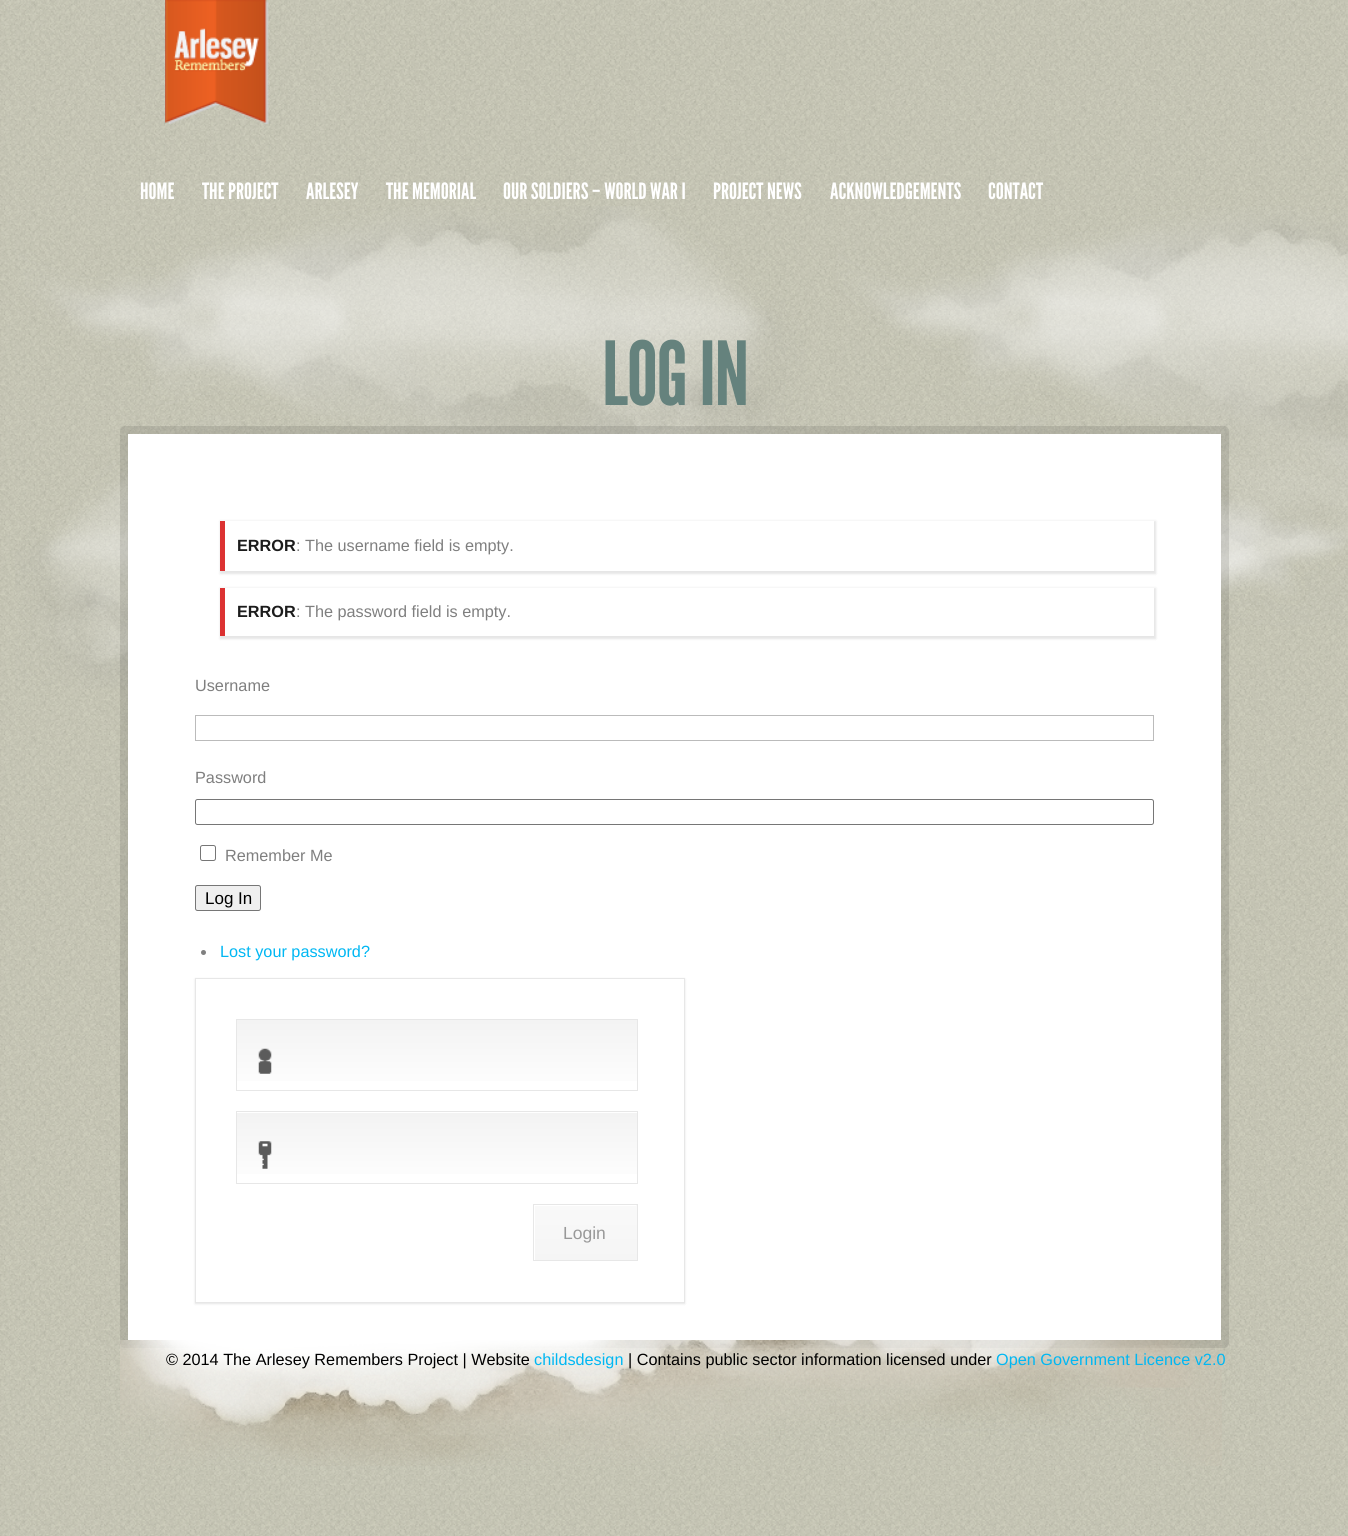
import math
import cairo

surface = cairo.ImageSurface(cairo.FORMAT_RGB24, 1348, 1536)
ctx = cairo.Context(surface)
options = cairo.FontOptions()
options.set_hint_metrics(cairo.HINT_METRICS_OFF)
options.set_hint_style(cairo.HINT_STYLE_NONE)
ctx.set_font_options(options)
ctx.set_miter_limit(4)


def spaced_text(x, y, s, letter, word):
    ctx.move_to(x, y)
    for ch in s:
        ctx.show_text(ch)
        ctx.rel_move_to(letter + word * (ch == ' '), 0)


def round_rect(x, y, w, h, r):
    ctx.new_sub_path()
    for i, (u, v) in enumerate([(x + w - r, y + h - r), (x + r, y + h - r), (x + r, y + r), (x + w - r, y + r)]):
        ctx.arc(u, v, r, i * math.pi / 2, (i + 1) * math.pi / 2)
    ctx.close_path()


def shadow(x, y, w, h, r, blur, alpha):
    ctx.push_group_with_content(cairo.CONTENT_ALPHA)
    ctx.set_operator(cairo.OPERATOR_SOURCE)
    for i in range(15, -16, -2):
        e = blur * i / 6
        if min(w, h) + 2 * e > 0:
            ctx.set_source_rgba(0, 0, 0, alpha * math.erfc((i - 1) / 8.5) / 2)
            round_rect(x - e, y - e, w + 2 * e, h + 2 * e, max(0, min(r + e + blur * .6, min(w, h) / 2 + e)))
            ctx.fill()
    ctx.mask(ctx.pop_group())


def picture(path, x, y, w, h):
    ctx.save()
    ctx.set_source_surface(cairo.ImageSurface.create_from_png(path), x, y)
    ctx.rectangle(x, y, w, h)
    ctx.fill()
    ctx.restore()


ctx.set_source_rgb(1, 1, 1)
ctx.paint()
picture("img1.png", 0, 0, 1348, 1536)
picture("img2.png", 165, 0, 104, 124)
ctx.select_font_face("League Gothic")
ctx.set_font_size(22.5)
ctx.set_source_rgb(1, 1, 1)
ctx.move_to(140, 199)
ctx.show_text("HOME")
ctx.move_to(202, 199)
ctx.show_text("THE PROJECT")
ctx.move_to(306, 199)
ctx.show_text("ARLESEY")
ctx.move_to(386, 199)
ctx.show_text("THE MEMORIAL")
ctx.move_to(503, 199)
ctx.show_text("OUR SOLDIERS – WORLD WAR I")
ctx.move_to(713, 199)
ctx.show_text("PROJECT NEWS")
ctx.move_to(830, 199)
ctx.show_text("ACKNOWLEDGEMENTS")
ctx.move_to(988, 199)
ctx.show_text("CONTACT")
picture("img6.png", 15, 206, 1333, 483)
ctx.set_font_size(88)
ctx.set_source_rgb(0.396, 0.51, 0.49)
spaced_text(602, 405, "LOG IN", -1.25, 0)
ctx.set_source_rgba(0, 0, 0, 0.1)
round_rect(120, 426, 1109, 922, 5)
ctx.fill()
ctx.set_source_rgb(1, 1, 1)
ctx.rectangle(128, 434, 1093, 906)
ctx.fill()
ctx.save()
ctx.set_fill_rule(cairo.FILL_RULE_EVEN_ODD)
ctx.new_path()
ctx.move_to(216, 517)
ctx.line_to(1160, 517)
ctx.line_to(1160, 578)
ctx.line_to(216, 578)
ctx.close_path()
ctx.move_to(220, 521)
ctx.line_to(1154, 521)
ctx.line_to(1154, 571)
ctx.line_to(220, 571)
ctx.close_path()
ctx.clip()
ctx.set_source_rgb(0, 0, 0)
shadow(220, 521, 936, 53, 0, 1, 0.1)
ctx.restore()
ctx.set_source_rgb(0.863, 0.196, 0.196)
ctx.rectangle(220, 521, 5, 50)
ctx.fill()
ctx.select_font_face("Liberation Sans", cairo.FONT_SLANT_NORMAL, cairo.FONT_WEIGHT_BOLD)
ctx.set_font_size(16.25)
ctx.set_source_rgb(0.11, 0.11, 0.11)
ctx.move_to(237, 551)
ctx.show_text("ERROR")
ctx.select_font_face("Liberation Sans")
ctx.set_source_rgb(0.498, 0.498, 0.498)
ctx.move_to(296, 551)
ctx.show_text(": The username field is empty.")
ctx.save()
ctx.set_fill_rule(cairo.FILL_RULE_EVEN_ODD)
ctx.new_path()
ctx.move_to(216, 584)
ctx.line_to(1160, 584)
ctx.line_to(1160, 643)
ctx.line_to(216, 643)
ctx.close_path()
ctx.move_to(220, 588)
ctx.line_to(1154, 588)
ctx.line_to(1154, 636)
ctx.line_to(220, 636)
ctx.close_path()
ctx.clip()
ctx.set_source_rgb(0, 0, 0)
shadow(220, 588, 936, 51, 0, 1, 0.1)
ctx.restore()
ctx.set_source_rgb(0.863, 0.196, 0.196)
ctx.rectangle(220, 588, 5, 48)
ctx.fill()
ctx.select_font_face("Liberation Sans", cairo.FONT_SLANT_NORMAL, cairo.FONT_WEIGHT_BOLD)
ctx.set_source_rgb(0.11, 0.11, 0.11)
ctx.move_to(237, 617)
ctx.show_text("ERROR")
ctx.select_font_face("Liberation Sans")
ctx.set_source_rgb(0.498, 0.498, 0.498)
ctx.move_to(296, 617)
ctx.show_text(": The password field is empty.")
ctx.move_to(195, 691)
ctx.show_text("Username")
ctx.rectangle(195.5, 715.5, 958, 25)
ctx.set_source_rgb(0.733, 0.733, 0.733)
ctx.set_line_width(1)
ctx.stroke()
ctx.set_source_rgb(0.498, 0.498, 0.498)
ctx.move_to(195, 783)
ctx.show_text("Password")
round_rect(195.5, 799.5, 958, 25, 2)
ctx.set_source_rgb(0.463, 0.463, 0.463)
ctx.stroke()
round_rect(200.5, 845.5, 15, 15, 2)
ctx.stroke()
ctx.set_source_rgb(0.498, 0.498, 0.498)
ctx.move_to(225, 861)
ctx.show_text("Remember Me")
ctx.set_source_rgb(0.937, 0.937, 0.937)
round_rect(195.5, 885.5, 65, 25, 2)
ctx.fill_preserve()
ctx.set_source_rgb(0.463, 0.463, 0.463)
ctx.stroke()
ctx.set_font_size(17)
ctx.set_source_rgb(0, 0, 0)
ctx.move_to(205, 904)
ctx.show_text("Log In")
ctx.set_source_rgb(0.498, 0.498, 0.498)
ctx.new_path()
ctx.arc(203.5, 952.5, 2.5, 0, 2 * math.pi)
ctx.fill()
ctx.set_font_size(16.25)
ctx.set_source_rgb(0, 0.718, 0.953)
ctx.move_to(220, 957)
ctx.show_text("Lost your password?")
ctx.set_source_rgb(0, 0, 0)
shadow(195, 979, 490, 325, 0, 1, 0.1)
ctx.set_source_rgb(1, 1, 1)
ctx.rectangle(195.5, 978.5, 489, 324)
ctx.fill_preserve()
ctx.set_source_rgb(0.906, 0.906, 0.906)
ctx.stroke()
gradient = cairo.LinearGradient(437, 1020, 437, 1090)
gradient.add_color_stop_rgba(0.01, 0.953, 0.953, 0.953, 1)
gradient.add_color_stop_rgba(1, 0.996, 0.996, 0.996, 1)
ctx.set_source(gradient)
ctx.rectangle(237, 1020, 400, 61)
ctx.fill()
ctx.rectangle(236.5, 1019.5, 401, 71)
ctx.set_source_rgb(0.906, 0.906, 0.906)
ctx.stroke()
picture("img3.png", 258, 1048, 14, 26)
gradient = cairo.LinearGradient(437, 1113, 437, 1183)
gradient.add_color_stop_rgba(0.01, 0.953, 0.953, 0.953, 1)
gradient.add_color_stop_rgba(1, 0.996, 0.996, 0.996, 1)
ctx.set_source(gradient)
ctx.rectangle(237, 1113, 400, 61)
ctx.fill()
ctx.rectangle(236.5, 1111.5, 401, 72)
ctx.set_source_rgb(0.906, 0.906, 0.906)
ctx.stroke()
picture("img4.png", 258, 1141, 14, 28)
gradient = cairo.LinearGradient(585, 1205, 585, 1260)
gradient.add_color_stop_rgba(0, 0.976, 0.976, 0.976, 1)
gradient.add_color_stop_rgba(1, 0.961, 0.961, 0.961, 1)
ctx.set_source(gradient)
ctx.rectangle(535, 1205, 102, 55)
ctx.fill()
ctx.save()
ctx.rectangle(534, 1205, 102, 55)
ctx.clip()
ctx.set_source_rgb(1, 1, 1)
ctx.set_fill_rule(cairo.FILL_RULE_EVEN_ODD)
ctx.new_path()
ctx.move_to(410, 1081)
ctx.line_to(760, 1081)
ctx.line_to(760, 1384)
ctx.line_to(410, 1384)
ctx.close_path()
ctx.move_to(535, 1206)
ctx.line_to(638, 1206)
ctx.line_to(638, 1261)
ctx.line_to(535, 1261)
ctx.close_path()
ctx.fill()
ctx.restore()
ctx.rectangle(533.5, 1204.5, 104, 56)
ctx.set_source_rgb(0.906, 0.906, 0.906)
ctx.stroke()
ctx.set_font_size(17.5)
ctx.set_source_rgb(0.6, 0.6, 0.6)
ctx.move_to(563, 1239)
ctx.show_text("Login")
picture("img5.png", 120, 1340, 1102, 126)
ctx.set_font_size(16.25)
ctx.set_source_rgb(0, 0, 0)
ctx.move_to(166, 1365)
ctx.show_text("© 2014 The Arlesey Remembers Project | Website")
ctx.set_source_rgb(0, 0.718, 0.953)
ctx.move_to(534, 1365)
ctx.show_text("childsdesign")
ctx.set_source_rgb(0, 0, 0)
ctx.move_to(628, 1365)
ctx.show_text("| Contains public sector information licensed under")
ctx.set_source_rgb(0, 0.718, 0.953)
ctx.move_to(996, 1365)
ctx.show_text("Open Government Licence v2.0")
surface.write_to_png("page.png")
